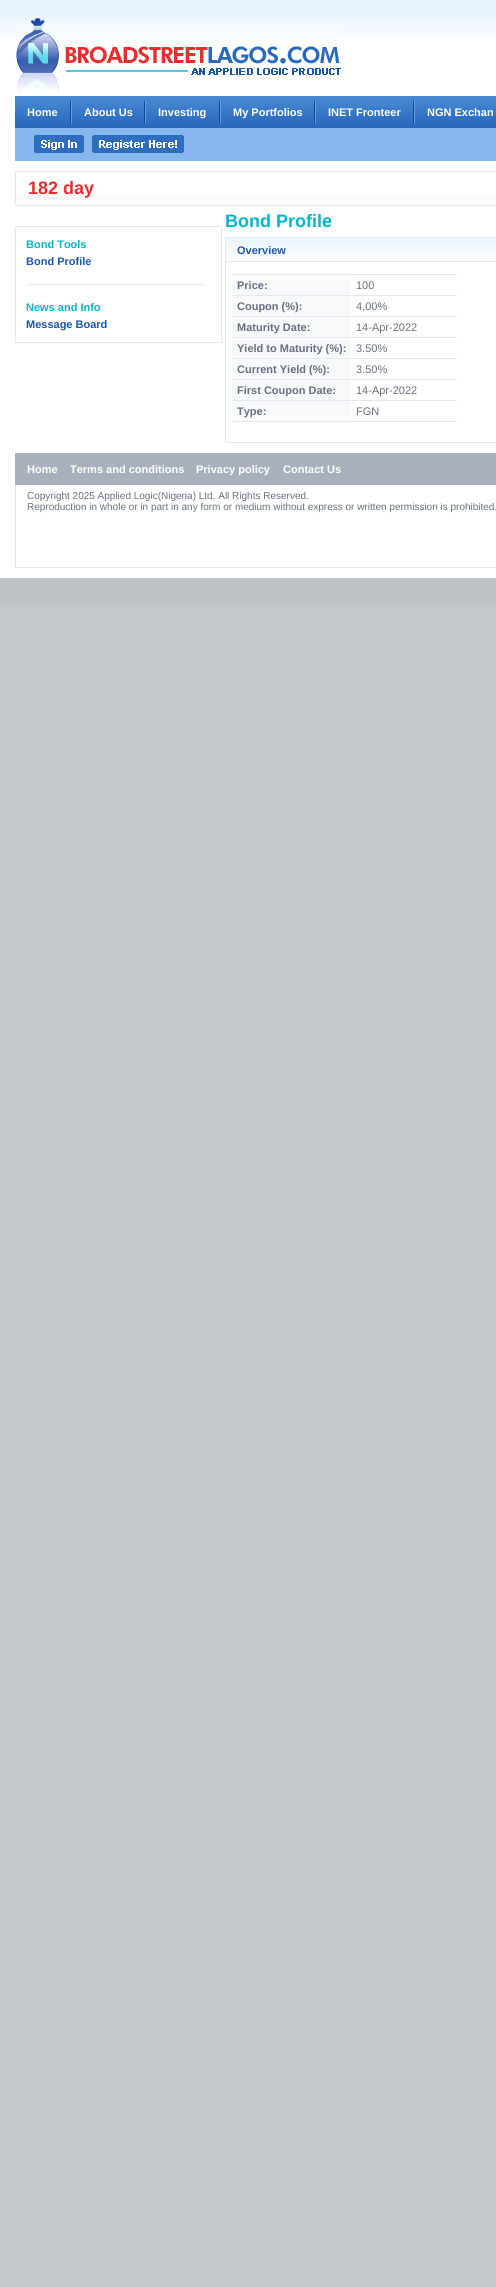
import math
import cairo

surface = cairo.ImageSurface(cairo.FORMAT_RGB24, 496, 2287)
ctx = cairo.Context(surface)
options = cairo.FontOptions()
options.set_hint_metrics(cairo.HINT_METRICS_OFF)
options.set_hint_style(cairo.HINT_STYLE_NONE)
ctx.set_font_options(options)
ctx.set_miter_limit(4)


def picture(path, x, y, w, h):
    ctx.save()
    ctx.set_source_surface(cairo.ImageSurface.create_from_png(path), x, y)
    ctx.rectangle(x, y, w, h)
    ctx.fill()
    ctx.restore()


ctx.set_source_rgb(0.765, 0.784, 0.8)
ctx.paint()
picture("img1.png", 0, 578, 496, 29)
ctx.set_source_rgb(1, 1, 1)
ctx.rectangle(0, 38, 496, 540)
ctx.fill()
picture("img2.png", 0, 0, 496, 38)
picture("img3.png", 16, 18, 325, 77)
picture("img4.png", 70, 96, 345, 32)
picture("img5.png", 15, 96, 55, 32)
ctx.select_font_face("Liberation Sans", cairo.FONT_SLANT_NORMAL, cairo.FONT_WEIGHT_BOLD)
ctx.set_font_size(11)
ctx.move_to(27, 116)
ctx.show_text("Home")
picture("img6.png", 70, 101, 2, 22)
picture("img7.png", 72, 96, 72, 32)
ctx.move_to(84, 116)
ctx.show_text("About Us")
picture("img6.png", 144, 101, 2, 22)
picture("img8.png", 146, 96, 73, 32)
ctx.move_to(158, 116)
ctx.show_text("Investing")
picture("img6.png", 219, 101, 2, 22)
picture("img9.png", 221, 96, 93, 32)
ctx.move_to(233, 116)
ctx.show_text("My Portfolios")
picture("img6.png", 314, 101, 2, 22)
picture("img10.png", 316, 96, 97, 32)
ctx.move_to(328, 116)
ctx.show_text("INET Fronteer")
picture("img6.png", 413, 101, 2, 22)
picture("img11.png", 415, 96, 81, 32)
ctx.move_to(427, 116)
ctx.show_text("NGN Exchan")
ctx.set_source_rgb(0.525, 0.722, 0.929)
ctx.rectangle(15, 128, 481, 33)
ctx.fill()
picture("img12.png", 34, 135, 50, 18)
picture("img13.png", 92, 135, 92, 18)
ctx.set_source_rgb(0.973, 0.973, 0.973)
ctx.rectangle(16, 195, 480, 10)
ctx.fill()
ctx.rectangle(15.5, 171.5, 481, 34)
ctx.set_source_rgb(0.898, 0.91, 0.925)
ctx.set_line_width(1)
ctx.stroke()
ctx.set_font_size(18)
ctx.set_source_rgb(0.925, 0.173, 0.18)
ctx.move_to(28, 194)
ctx.show_text("182 day")
ctx.rectangle(15.5, 226.5, 206, 116)
ctx.set_source_rgb(0.898, 0.91, 0.925)
ctx.stroke()
ctx.rectangle(26, 284, 179, 1)
ctx.fill()
ctx.set_font_size(11)
ctx.set_source_rgb(0, 0.71, 0.792)
ctx.move_to(26, 248)
ctx.show_text("Bond Tools")
ctx.set_source_rgb(0.098, 0.341, 0.671)
ctx.move_to(26, 265)
ctx.show_text("Bond Profile")
ctx.set_source_rgb(0, 0.71, 0.792)
ctx.move_to(26, 311)
ctx.show_text("News and Info")
ctx.set_source_rgb(0.098, 0.341, 0.671)
ctx.move_to(26, 328)
ctx.show_text("Message Board")
ctx.set_font_size(18)
ctx.set_source_rgb(0, 0.71, 0.792)
ctx.move_to(225, 227)
ctx.show_text("Bond Profile")
picture("img14.png", 226, 238, 270, 19)
ctx.rectangle(225.5, 237.5, 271, 205)
ctx.set_source_rgb(0.898, 0.91, 0.925)
ctx.stroke()
ctx.rectangle(226, 261, 270, 1)
ctx.fill()
ctx.set_font_size(11)
ctx.set_source_rgb(0.098, 0.341, 0.671)
ctx.move_to(237, 254)
ctx.show_text("Overview")
ctx.set_source_rgb(0.965, 0.973, 0.984)
ctx.rectangle(232, 275, 119, 20)
ctx.fill()
ctx.set_source_rgb(0.898, 0.91, 0.925)
ctx.rectangle(232, 274, 225, 1)
ctx.fill()
ctx.set_source_rgb(0.404, 0.435, 0.502)
ctx.move_to(237, 289)
ctx.show_text("Price:")
ctx.select_font_face("Liberation Sans")
ctx.move_to(356, 289)
ctx.show_text("100")
ctx.set_source_rgb(0.965, 0.973, 0.984)
ctx.rectangle(232, 296, 119, 20)
ctx.fill()
ctx.set_source_rgb(0.898, 0.91, 0.925)
ctx.rectangle(232, 295, 225, 1)
ctx.fill()
ctx.select_font_face("Liberation Sans", cairo.FONT_SLANT_NORMAL, cairo.FONT_WEIGHT_BOLD)
ctx.set_source_rgb(0.404, 0.435, 0.502)
ctx.move_to(237, 310)
ctx.show_text("Coupon (%):")
ctx.select_font_face("Liberation Sans")
ctx.move_to(356, 310)
ctx.show_text("4.00%")
ctx.set_source_rgb(0.965, 0.973, 0.984)
ctx.rectangle(232, 317, 119, 20)
ctx.fill()
ctx.set_source_rgb(0.898, 0.91, 0.925)
ctx.rectangle(232, 316, 225, 1)
ctx.fill()
ctx.select_font_face("Liberation Sans", cairo.FONT_SLANT_NORMAL, cairo.FONT_WEIGHT_BOLD)
ctx.set_source_rgb(0.404, 0.435, 0.502)
ctx.move_to(237, 331)
ctx.show_text("Maturity Date:")
ctx.select_font_face("Liberation Sans")
ctx.move_to(356, 331)
ctx.show_text("14-Apr-2022")
ctx.set_source_rgb(0.965, 0.973, 0.984)
ctx.rectangle(232, 338, 119, 20)
ctx.fill()
ctx.set_source_rgb(0.898, 0.91, 0.925)
ctx.rectangle(232, 337, 225, 1)
ctx.fill()
ctx.select_font_face("Liberation Sans", cairo.FONT_SLANT_NORMAL, cairo.FONT_WEIGHT_BOLD)
ctx.set_source_rgb(0.404, 0.435, 0.502)
ctx.move_to(237, 352)
ctx.show_text("Yield to Maturity (%):")
ctx.select_font_face("Liberation Sans")
ctx.move_to(356, 352)
ctx.show_text("3.50%")
ctx.set_source_rgb(0.965, 0.973, 0.984)
ctx.rectangle(232, 359, 119, 20)
ctx.fill()
ctx.set_source_rgb(0.898, 0.91, 0.925)
ctx.rectangle(232, 358, 225, 1)
ctx.fill()
ctx.select_font_face("Liberation Sans", cairo.FONT_SLANT_NORMAL, cairo.FONT_WEIGHT_BOLD)
ctx.set_source_rgb(0.404, 0.435, 0.502)
ctx.move_to(237, 373)
ctx.show_text("Current Yield (%):")
ctx.select_font_face("Liberation Sans")
ctx.move_to(356, 373)
ctx.show_text("3.50%")
ctx.set_source_rgb(0.965, 0.973, 0.984)
ctx.rectangle(232, 380, 119, 20)
ctx.fill()
ctx.set_source_rgb(0.898, 0.91, 0.925)
ctx.rectangle(232, 379, 225, 1)
ctx.fill()
ctx.select_font_face("Liberation Sans", cairo.FONT_SLANT_NORMAL, cairo.FONT_WEIGHT_BOLD)
ctx.set_source_rgb(0.404, 0.435, 0.502)
ctx.move_to(237, 394)
ctx.show_text("First Coupon Date:")
ctx.select_font_face("Liberation Sans")
ctx.move_to(356, 394)
ctx.show_text("14-Apr-2022")
ctx.set_source_rgb(0.965, 0.973, 0.984)
ctx.rectangle(232, 401, 119, 20)
ctx.fill()
ctx.set_source_rgb(0.898, 0.91, 0.925)
ctx.rectangle(232, 400, 225, 1)
ctx.fill()
ctx.select_font_face("Liberation Sans", cairo.FONT_SLANT_NORMAL, cairo.FONT_WEIGHT_BOLD)
ctx.set_source_rgb(0.404, 0.435, 0.502)
ctx.move_to(237, 415)
ctx.show_text("Type:")
ctx.select_font_face("Liberation Sans")
ctx.move_to(356, 415)
ctx.show_text("FGN")
ctx.set_source_rgb(0.898, 0.91, 0.925)
ctx.rectangle(232, 421, 225, 1)
ctx.fill()
ctx.set_source_rgb(0.659, 0.694, 0.733)
ctx.rectangle(15, 453, 481, 32)
ctx.fill()
ctx.select_font_face("Liberation Sans", cairo.FONT_SLANT_NORMAL, cairo.FONT_WEIGHT_BOLD)
ctx.set_source_rgb(1, 1, 1)
ctx.move_to(27, 473)
ctx.show_text("Home")
ctx.move_to(70, 473)
ctx.show_text("Terms and conditions")
ctx.move_to(196, 473)
ctx.show_text("Privacy policy")
ctx.move_to(283, 473)
ctx.show_text("Contact Us")
ctx.set_source_rgb(0.898, 0.91, 0.925)
ctx.rectangle(15, 567, 481, 1)
ctx.fill()
ctx.rectangle(15, 485, 1, 83)
ctx.fill()
ctx.select_font_face("Liberation Sans")
ctx.set_font_size(10)
ctx.set_source_rgb(0.404, 0.435, 0.502)
ctx.move_to(27, 499)
ctx.show_text("Copyright 2025 Applied Logic(Nigeria) Ltd. All Rights Reserved.")
ctx.move_to(27, 510)
ctx.show_text("Reproduction in whole or in part in any form or medium without express or written permission is prohibited.")
surface.write_to_png("page.png")
